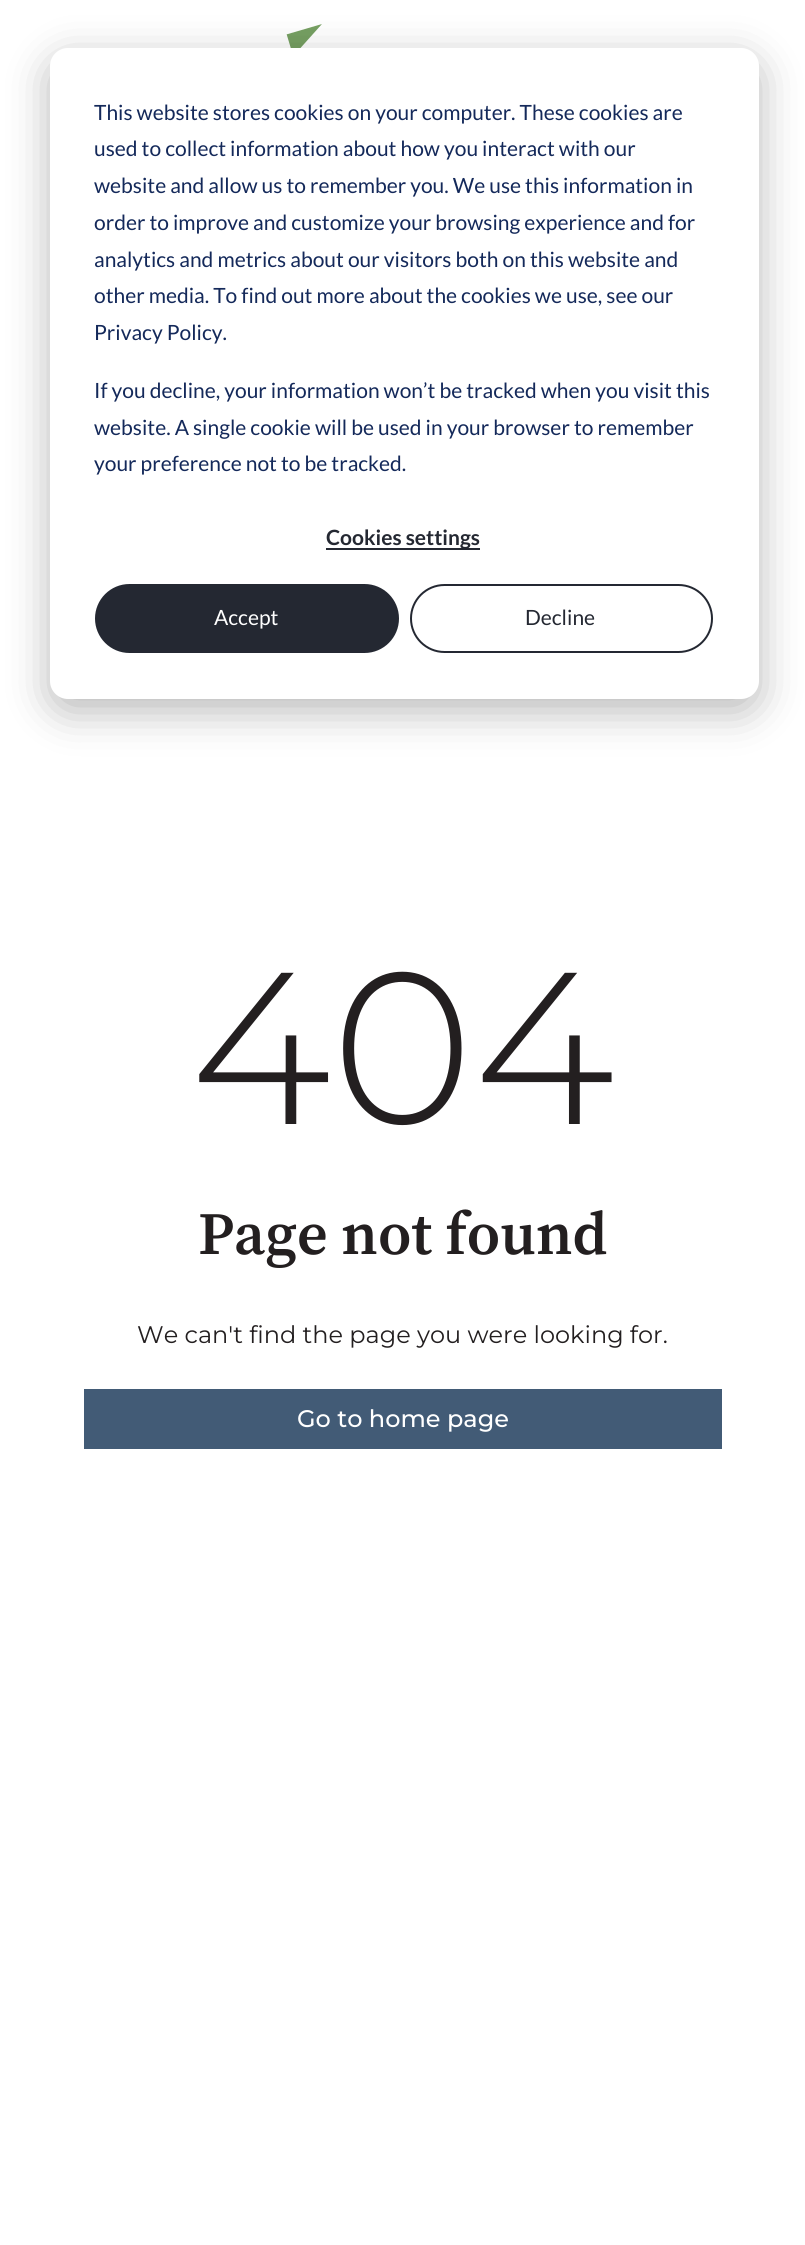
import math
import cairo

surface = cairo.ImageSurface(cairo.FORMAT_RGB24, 805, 2245)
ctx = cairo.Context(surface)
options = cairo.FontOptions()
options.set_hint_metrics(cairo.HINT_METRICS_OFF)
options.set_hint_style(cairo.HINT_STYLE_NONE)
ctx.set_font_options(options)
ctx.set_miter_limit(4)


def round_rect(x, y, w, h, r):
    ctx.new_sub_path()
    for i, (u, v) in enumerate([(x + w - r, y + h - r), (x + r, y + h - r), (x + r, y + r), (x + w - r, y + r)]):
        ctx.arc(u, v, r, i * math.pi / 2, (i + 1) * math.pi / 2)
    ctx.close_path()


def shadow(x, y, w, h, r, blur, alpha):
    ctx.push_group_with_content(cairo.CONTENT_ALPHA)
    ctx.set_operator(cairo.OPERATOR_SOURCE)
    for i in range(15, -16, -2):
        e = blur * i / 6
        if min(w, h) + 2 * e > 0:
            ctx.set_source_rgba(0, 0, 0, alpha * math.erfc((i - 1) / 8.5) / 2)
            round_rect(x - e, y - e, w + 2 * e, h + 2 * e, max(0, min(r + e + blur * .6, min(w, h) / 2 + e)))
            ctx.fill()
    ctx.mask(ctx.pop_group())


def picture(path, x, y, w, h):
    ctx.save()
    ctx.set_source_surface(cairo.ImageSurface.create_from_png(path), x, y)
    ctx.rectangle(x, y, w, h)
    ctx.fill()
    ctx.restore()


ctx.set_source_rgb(1, 1, 1)
ctx.paint()
picture("img1.png", 286, 24, 36, 24)
ctx.set_source_rgb(0, 0, 0)
shadow(50, 60, 709, 651, 18, 21, 0.28)
ctx.set_source_rgb(1, 1, 1)
round_rect(50, 48, 709, 651, 18)
ctx.fill()
ctx.select_font_face("Lato")
ctx.set_font_size(21)
ctx.set_source_rgb(0.082, 0.161, 0.353)
ctx.move_to(94, 120)
ctx.show_text("This website stores cookies on your computer. These cookies are")
ctx.move_to(94, 156)
ctx.show_text("used to collect information about how you interact with our")
ctx.move_to(94, 193)
ctx.show_text("website and allow us to remember you. We use this information in")
ctx.move_to(94, 230)
ctx.show_text("order to improve and customize your browsing experience and for")
ctx.move_to(94, 267)
ctx.show_text("analytics and metrics about our visitors both on this website and")
ctx.move_to(94, 303)
ctx.show_text("other media. To find out more about the cookies we use, see our")
ctx.move_to(94, 340)
ctx.show_text("Privacy Policy.")
ctx.move_to(94, 398)
ctx.show_text("If you decline, your information won’t be tracked when you visit this")
ctx.move_to(94, 435)
ctx.show_text("website. A single cookie will be used in your browser to remember")
ctx.move_to(94, 471)
ctx.show_text("your preference not to be tracked.")
ctx.set_source_rgb(0.141, 0.157, 0.196)
ctx.rectangle(326, 548, 154, 2)
ctx.fill()
ctx.select_font_face("Lato", cairo.FONT_SLANT_NORMAL, cairo.FONT_WEIGHT_BOLD)
ctx.move_to(326, 545)
ctx.show_text("Cookies settings")
round_rect(96, 585, 302, 67, 33.5)
ctx.fill_preserve()
ctx.stroke()
ctx.select_font_face("Lato")
ctx.set_source_rgb(1, 1, 1)
ctx.move_to(214, 625)
ctx.show_text("Accept")
round_rect(411, 585, 301, 67, 33.5)
ctx.set_source_rgb(0.141, 0.157, 0.196)
ctx.stroke()
ctx.move_to(525, 625)
ctx.show_text("Decline")
ctx.select_font_face("Montserrat Light")
ctx.set_font_size(216)
ctx.set_source_rgb(0.137, 0.122, 0.125)
ctx.move_to(190, 1124)
ctx.show_text("404")
ctx.select_font_face("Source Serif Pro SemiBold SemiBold")
ctx.set_font_size(60)
ctx.move_to(198, 1254)
ctx.show_text("Page not found")
ctx.select_font_face("Montserrat")
ctx.set_font_size(24)
ctx.move_to(137, 1343)
ctx.show_text("We can't find the page you were looking for.")
ctx.set_source_rgb(0.259, 0.357, 0.463)
ctx.rectangle(84, 1389, 638, 60)
ctx.fill()
ctx.select_font_face("Montserrat Medium")
ctx.set_source_rgb(1, 1, 1)
ctx.move_to(297, 1427)
ctx.show_text("Go to home page")
surface.write_to_png("page.png")
